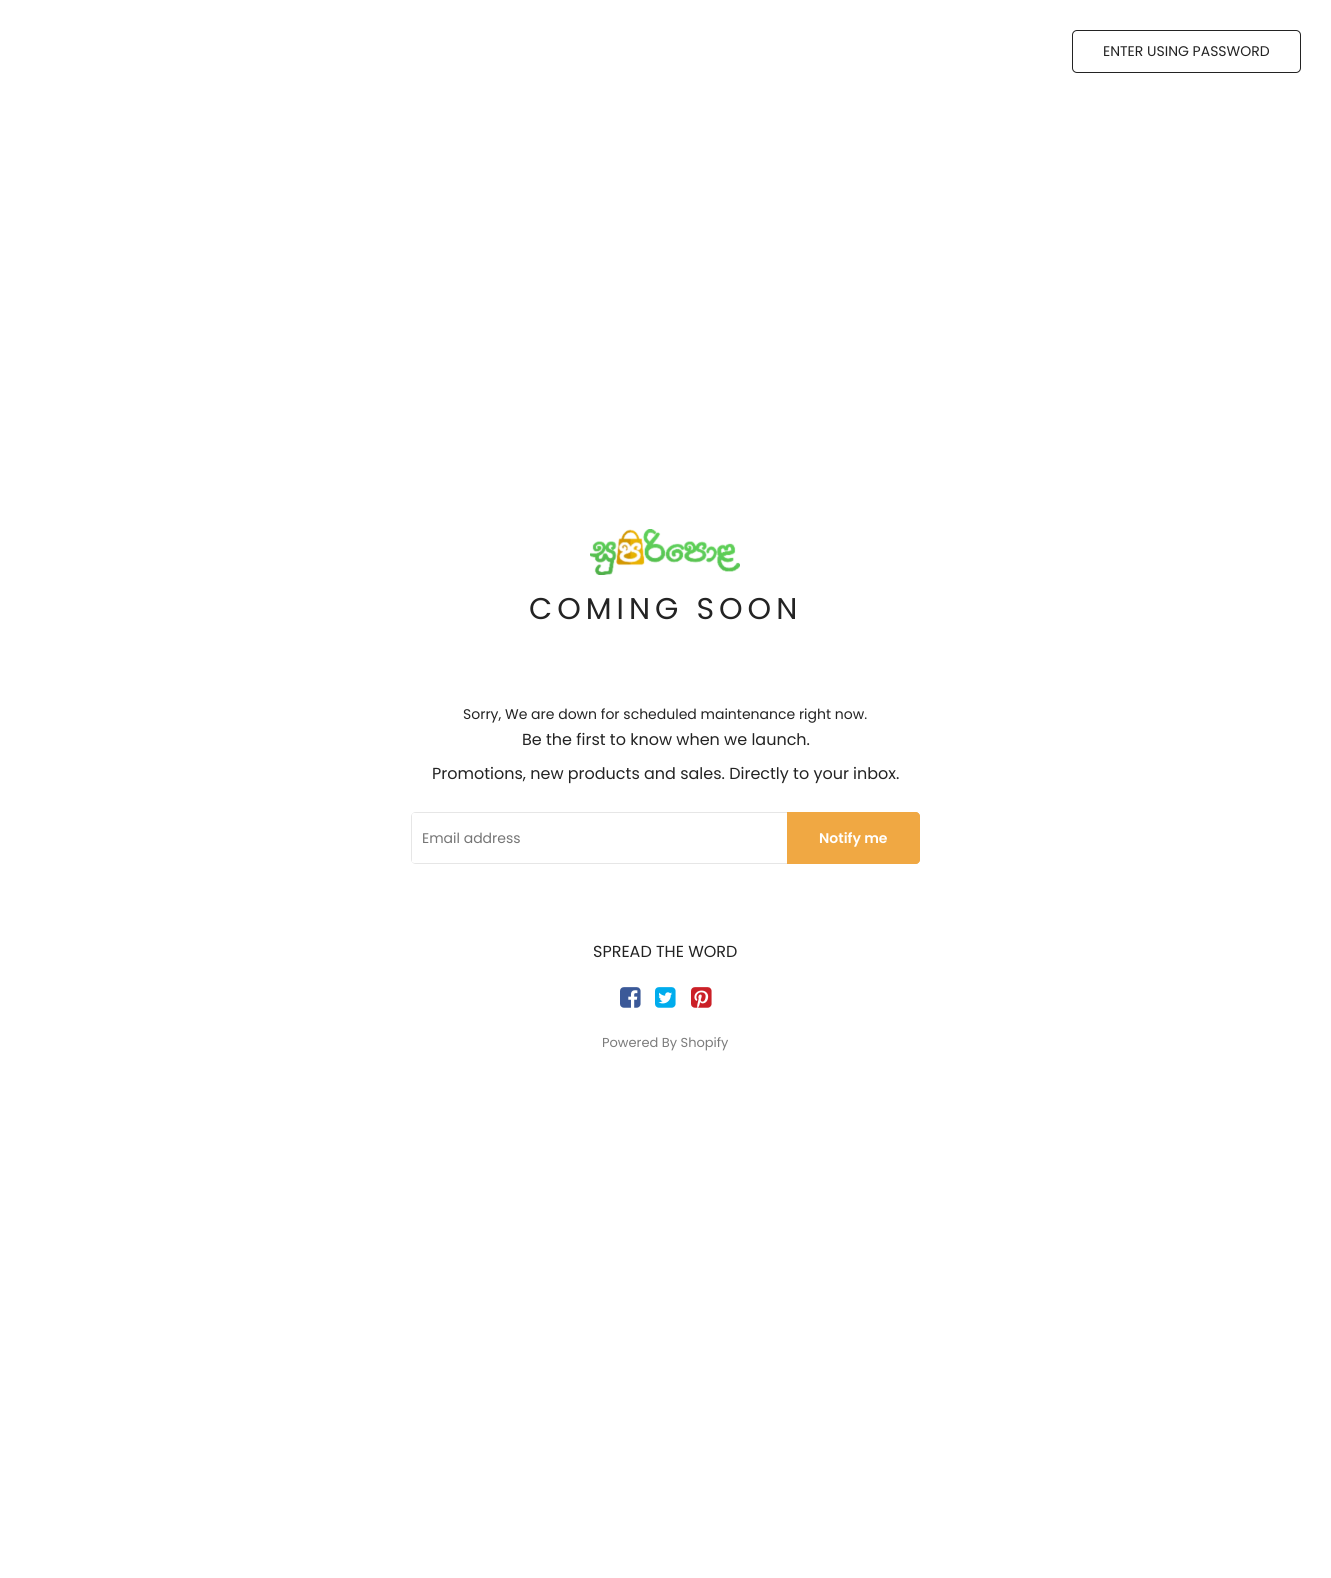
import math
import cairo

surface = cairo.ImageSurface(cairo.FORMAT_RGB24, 1331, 1578)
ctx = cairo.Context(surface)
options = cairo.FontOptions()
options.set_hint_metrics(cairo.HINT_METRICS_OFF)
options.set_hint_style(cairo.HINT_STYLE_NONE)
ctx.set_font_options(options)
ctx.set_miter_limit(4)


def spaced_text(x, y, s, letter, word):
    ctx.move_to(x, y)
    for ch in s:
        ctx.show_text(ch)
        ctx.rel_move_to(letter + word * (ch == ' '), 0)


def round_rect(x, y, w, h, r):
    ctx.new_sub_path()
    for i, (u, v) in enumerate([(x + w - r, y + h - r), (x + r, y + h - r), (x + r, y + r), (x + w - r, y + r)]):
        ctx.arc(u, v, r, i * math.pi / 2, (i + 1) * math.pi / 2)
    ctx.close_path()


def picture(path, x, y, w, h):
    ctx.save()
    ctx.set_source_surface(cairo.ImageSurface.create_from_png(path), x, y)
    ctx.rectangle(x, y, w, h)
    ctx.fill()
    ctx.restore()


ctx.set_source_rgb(1, 1, 1)
ctx.paint()
round_rect(1072.5, 30.5, 228, 42, 4.5)
ctx.set_source_rgb(0.137, 0.137, 0.137)
ctx.set_line_width(1)
ctx.stroke()
ctx.select_font_face("Poppins")
ctx.set_font_size(14)
ctx.move_to(1103, 56)
ctx.show_text("ENTER USING PASSWORD")
picture("img1.png", 590, 529, 150, 46)
ctx.set_font_size(30)
spaced_text(529, 619, "COMING SOON", 5, 0)
ctx.set_font_size(14)
ctx.move_to(463, 719)
ctx.show_text("Sorry, We are down for scheduled maintenance right now.")
ctx.set_font_size(16)
ctx.move_to(522, 745)
ctx.show_text("Be the first to know when we launch.")
ctx.move_to(432, 779)
ctx.show_text("Promotions, new products and sales. Directly to your inbox.")
ctx.set_source_rgb(0.902, 0.902, 0.902)
ctx.set_fill_rule(cairo.FILL_RULE_EVEN_ODD)
ctx.new_path()
ctx.move_to(414, 813)
ctx.line_to(918, 813)
ctx.curve_to(917, 812, 916, 812, 915, 812)
ctx.line_to(416, 812)
ctx.curve_to(413, 812, 411, 814, 411, 817)
ctx.line_to(411, 859)
ctx.curve_to(411, 862, 413, 864, 416, 864)
ctx.line_to(915, 864)
ctx.curve_to(916, 864, 917, 864, 918, 863)
ctx.line_to(414, 863)
ctx.line_to(412, 862)
ctx.line_to(412, 815)
ctx.curve_to(412, 814, 413, 813, 414, 813)
ctx.close_path()
ctx.move_to(920, 817)
ctx.line_to(919, 814)
ctx.line_to(919, 862)
ctx.curve_to(920, 861, 920, 860, 920, 859)
ctx.close_path()
ctx.fill()
ctx.set_font_size(14)
ctx.set_source_rgb(0.459, 0.459, 0.459)
ctx.move_to(422, 843)
ctx.show_text("Email address")
ctx.set_source_rgb(0.941, 0.659, 0.263)
ctx.new_path()
ctx.move_to(787, 812)
ctx.line_to(915, 812)
ctx.curve_to(918, 812, 920, 814, 920, 817)
ctx.line_to(920, 859)
ctx.curve_to(920, 862, 918, 864, 915, 864)
ctx.line_to(787, 864)
ctx.close_path()
ctx.fill()
ctx.new_path()
ctx.move_to(787, 812)
ctx.line_to(787, 864)
ctx.line_to(915, 864)
ctx.curve_to(918, 864, 920, 862, 920, 859)
ctx.line_to(920, 817)
ctx.curve_to(920, 814, 918, 812, 915, 812)
ctx.close_path()
ctx.move_to(789, 814)
ctx.line_to(789, 862)
ctx.line_to(917, 862)
ctx.curve_to(918, 862, 918, 862, 918, 861)
ctx.line_to(918, 815)
ctx.curve_to(918, 814, 918, 814, 917, 814)
ctx.close_path()
ctx.fill()
ctx.select_font_face("Poppins SemiBold")
ctx.set_source_rgb(1, 1, 1)
ctx.move_to(819, 843)
ctx.show_text("Notify me")
ctx.select_font_face("Poppins")
ctx.set_font_size(16)
ctx.set_source_rgb(0.137, 0.137, 0.137)
ctx.move_to(593, 957)
ctx.show_text("SPREAD THE WORD")
picture("img2.png", 620, 987, 21, 21)
picture("img3.png", 655, 987, 21, 21)
picture("img4.png", 691, 987, 21, 21)
ctx.set_font_size(13)
ctx.set_source_rgb(0.482, 0.482, 0.482)
ctx.move_to(602, 1047)
ctx.show_text("Powered By Shopify")
surface.write_to_png("page.png")
